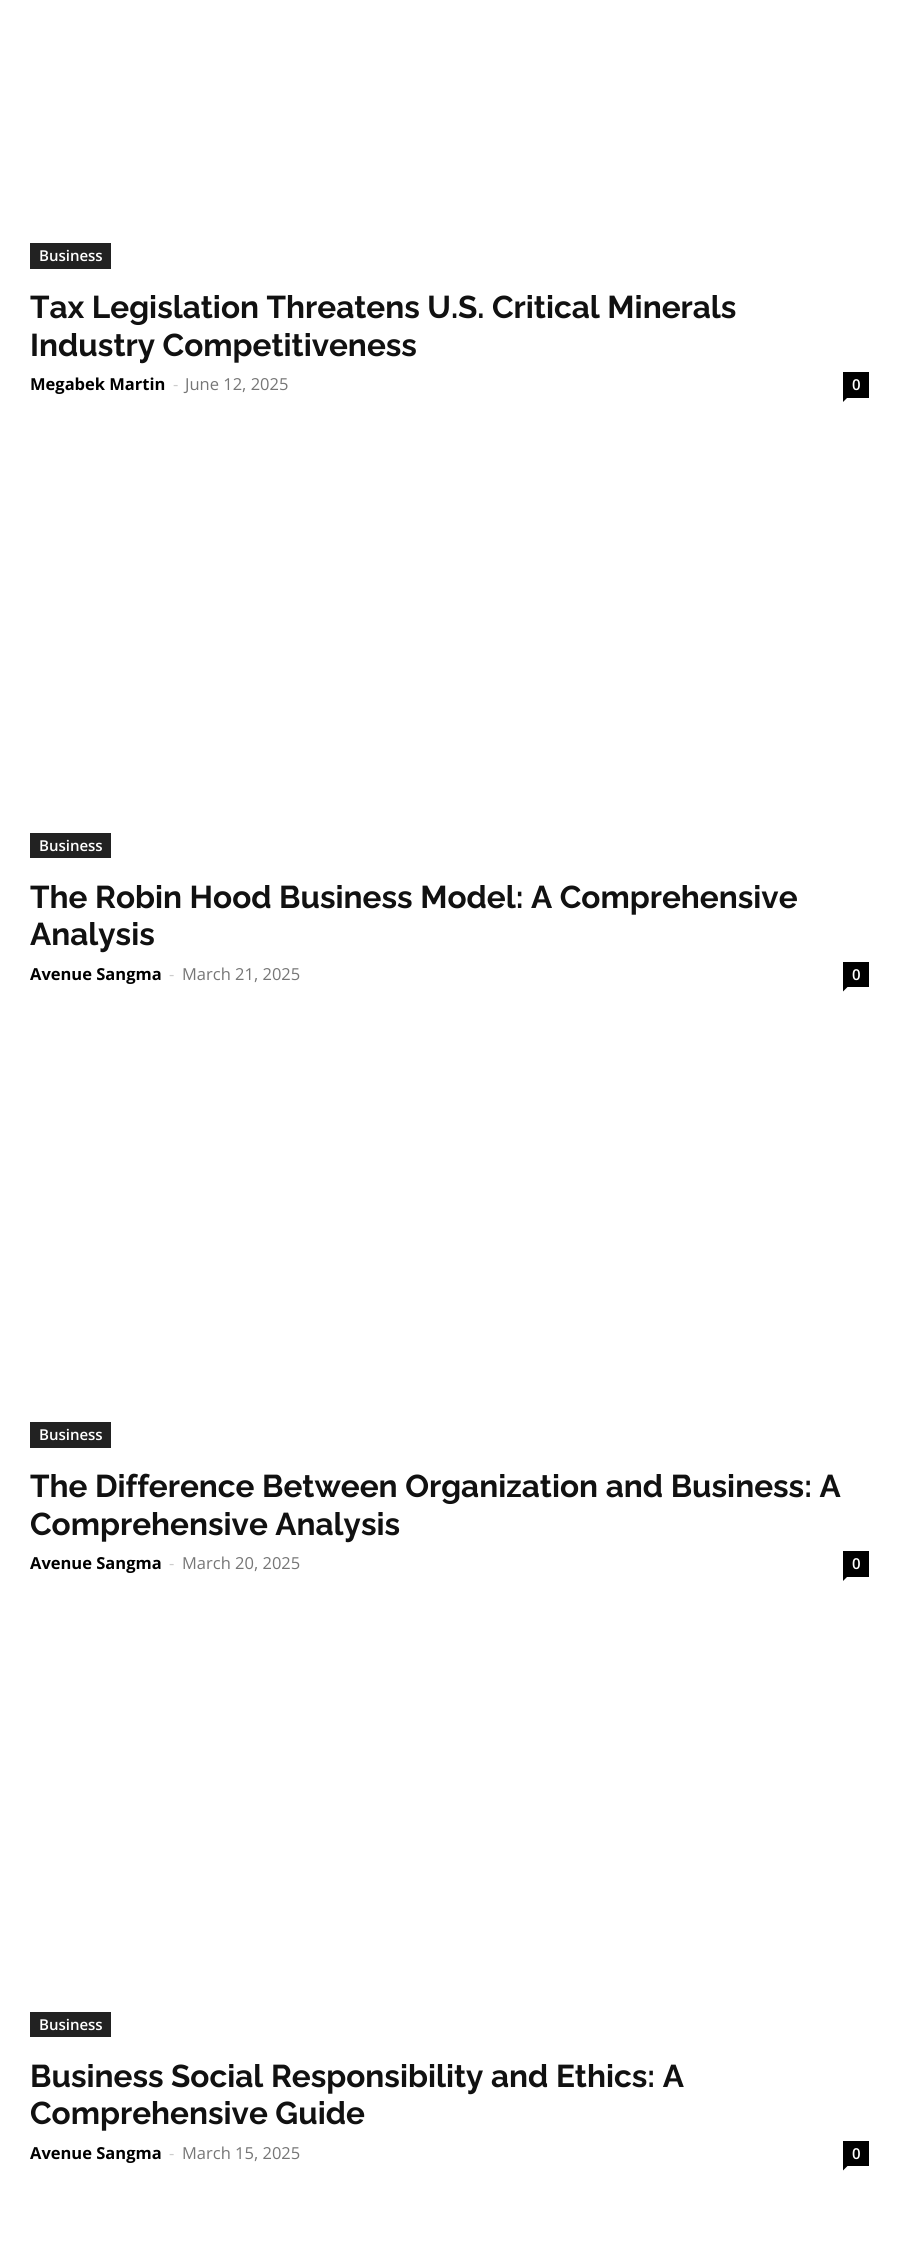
import math
import cairo

surface = cairo.ImageSurface(cairo.FORMAT_RGB24, 898, 2247)
ctx = cairo.Context(surface)
options = cairo.FontOptions()
options.set_hint_metrics(cairo.HINT_METRICS_OFF)
options.set_hint_style(cairo.HINT_STYLE_NONE)
ctx.set_font_options(options)
ctx.set_miter_limit(4)


ctx.set_source_rgb(1, 1, 1)
ctx.paint()
ctx.set_source_rgb(0.133, 0.133, 0.133)
ctx.rectangle(30, 243, 81, 26)
ctx.fill()
ctx.select_font_face("Open Sans SemiBold")
ctx.set_font_size(15)
ctx.set_source_rgb(1, 1, 1)
ctx.move_to(39, 261)
ctx.show_text("Business")
ctx.select_font_face("Raleway", cairo.FONT_SLANT_NORMAL, cairo.FONT_WEIGHT_BOLD)
ctx.set_font_size(31.5)
ctx.set_source_rgb(0.067, 0.067, 0.067)
ctx.move_to(30, 318)
ctx.show_text("Tax Legislation Threatens U.S. Critical Minerals")
ctx.move_to(30, 356)
ctx.show_text("Industry Competitiveness")
ctx.select_font_face("Open Sans", cairo.FONT_SLANT_NORMAL, cairo.FONT_WEIGHT_BOLD)
ctx.set_font_size(16.5)
ctx.set_source_rgb(0, 0, 0)
ctx.move_to(30, 390)
ctx.show_text("Megabek Martin")
ctx.select_font_face("Open Sans")
ctx.set_source_rgb(0.8, 0.8, 0.8)
ctx.move_to(173, 390)
ctx.show_text("-")
ctx.set_source_rgb(0.463, 0.463, 0.463)
ctx.move_to(185, 390)
ctx.show_text("June 12, 2025")
ctx.set_source_rgb(0, 0, 0)
ctx.rectangle(843, 372, 26, 26)
ctx.fill()
ctx.select_font_face("Open Sans SemiBold")
ctx.set_font_size(15)
ctx.set_source_rgb(1, 1, 1)
ctx.move_to(852, 390)
ctx.show_text("0")
ctx.set_source_rgb(0, 0, 0)
ctx.new_path()
ctx.move_to(843, 397.5)
ctx.line_to(847.5, 397.5)
ctx.line_to(843, 402)
ctx.close_path()
ctx.fill()
ctx.set_source_rgb(0.133, 0.133, 0.133)
ctx.rectangle(30, 833, 81, 25)
ctx.fill()
ctx.set_source_rgb(1, 1, 1)
ctx.move_to(39, 851)
ctx.show_text("Business")
ctx.select_font_face("Raleway", cairo.FONT_SLANT_NORMAL, cairo.FONT_WEIGHT_BOLD)
ctx.set_font_size(31.5)
ctx.set_source_rgb(0.067, 0.067, 0.067)
ctx.move_to(30, 908)
ctx.show_text("The Robin Hood Business Model: A Comprehensive")
ctx.move_to(30, 945)
ctx.show_text("Analysis")
ctx.select_font_face("Open Sans", cairo.FONT_SLANT_NORMAL, cairo.FONT_WEIGHT_BOLD)
ctx.set_font_size(16.5)
ctx.set_source_rgb(0, 0, 0)
ctx.move_to(30, 980)
ctx.show_text("Avenue Sangma")
ctx.select_font_face("Open Sans")
ctx.set_source_rgb(0.8, 0.8, 0.8)
ctx.move_to(169, 980)
ctx.show_text("-")
ctx.set_source_rgb(0.463, 0.463, 0.463)
ctx.move_to(182, 980)
ctx.show_text("March 21, 2025")
ctx.set_source_rgb(0, 0, 0)
ctx.rectangle(843, 962, 26, 25)
ctx.fill()
ctx.select_font_face("Open Sans SemiBold")
ctx.set_font_size(15)
ctx.set_source_rgb(1, 1, 1)
ctx.move_to(852, 980)
ctx.show_text("0")
ctx.set_source_rgb(0, 0, 0)
ctx.new_path()
ctx.move_to(843, 987)
ctx.line_to(847.5, 987)
ctx.line_to(843, 991.5)
ctx.close_path()
ctx.fill()
ctx.set_source_rgb(0.133, 0.133, 0.133)
ctx.rectangle(30, 1422, 81, 26)
ctx.fill()
ctx.set_source_rgb(1, 1, 1)
ctx.move_to(39, 1440)
ctx.show_text("Business")
ctx.select_font_face("Raleway", cairo.FONT_SLANT_NORMAL, cairo.FONT_WEIGHT_BOLD)
ctx.set_font_size(31.5)
ctx.set_source_rgb(0.067, 0.067, 0.067)
ctx.move_to(30, 1497)
ctx.show_text("The Difference Between Organization and Business: A")
ctx.move_to(30, 1535)
ctx.show_text("Comprehensive Analysis")
ctx.select_font_face("Open Sans", cairo.FONT_SLANT_NORMAL, cairo.FONT_WEIGHT_BOLD)
ctx.set_font_size(16.5)
ctx.set_source_rgb(0, 0, 0)
ctx.move_to(30, 1569)
ctx.show_text("Avenue Sangma")
ctx.select_font_face("Open Sans")
ctx.set_source_rgb(0.8, 0.8, 0.8)
ctx.move_to(169, 1569)
ctx.show_text("-")
ctx.set_source_rgb(0.463, 0.463, 0.463)
ctx.move_to(182, 1569)
ctx.show_text("March 20, 2025")
ctx.set_source_rgb(0, 0, 0)
ctx.rectangle(843, 1551, 26, 26)
ctx.fill()
ctx.select_font_face("Open Sans SemiBold")
ctx.set_font_size(15)
ctx.set_source_rgb(1, 1, 1)
ctx.move_to(852, 1569)
ctx.show_text("0")
ctx.set_source_rgb(0, 0, 0)
ctx.new_path()
ctx.move_to(843, 1576.5)
ctx.line_to(847.5, 1576.5)
ctx.line_to(843, 1581)
ctx.close_path()
ctx.fill()
ctx.set_source_rgb(0.133, 0.133, 0.133)
ctx.rectangle(30, 2012, 81, 25)
ctx.fill()
ctx.set_source_rgb(1, 1, 1)
ctx.move_to(39, 2030)
ctx.show_text("Business")
ctx.select_font_face("Raleway", cairo.FONT_SLANT_NORMAL, cairo.FONT_WEIGHT_BOLD)
ctx.set_font_size(31.5)
ctx.set_source_rgb(0.067, 0.067, 0.067)
ctx.move_to(30, 2087)
ctx.show_text("Business Social Responsibility and Ethics: A")
ctx.move_to(30, 2124)
ctx.show_text("Comprehensive Guide")
ctx.select_font_face("Open Sans", cairo.FONT_SLANT_NORMAL, cairo.FONT_WEIGHT_BOLD)
ctx.set_font_size(16.5)
ctx.set_source_rgb(0, 0, 0)
ctx.move_to(30, 2159)
ctx.show_text("Avenue Sangma")
ctx.select_font_face("Open Sans")
ctx.set_source_rgb(0.8, 0.8, 0.8)
ctx.move_to(169, 2159)
ctx.show_text("-")
ctx.set_source_rgb(0.463, 0.463, 0.463)
ctx.move_to(182, 2159)
ctx.show_text("March 15, 2025")
ctx.set_source_rgb(0, 0, 0)
ctx.rectangle(843, 2141, 26, 25)
ctx.fill()
ctx.select_font_face("Open Sans SemiBold")
ctx.set_font_size(15)
ctx.set_source_rgb(1, 1, 1)
ctx.move_to(852, 2159)
ctx.show_text("0")
ctx.set_source_rgb(0, 0, 0)
ctx.new_path()
ctx.move_to(843, 2166)
ctx.line_to(847.5, 2166)
ctx.line_to(843, 2170.5)
ctx.close_path()
ctx.fill()
surface.write_to_png("page.png")
